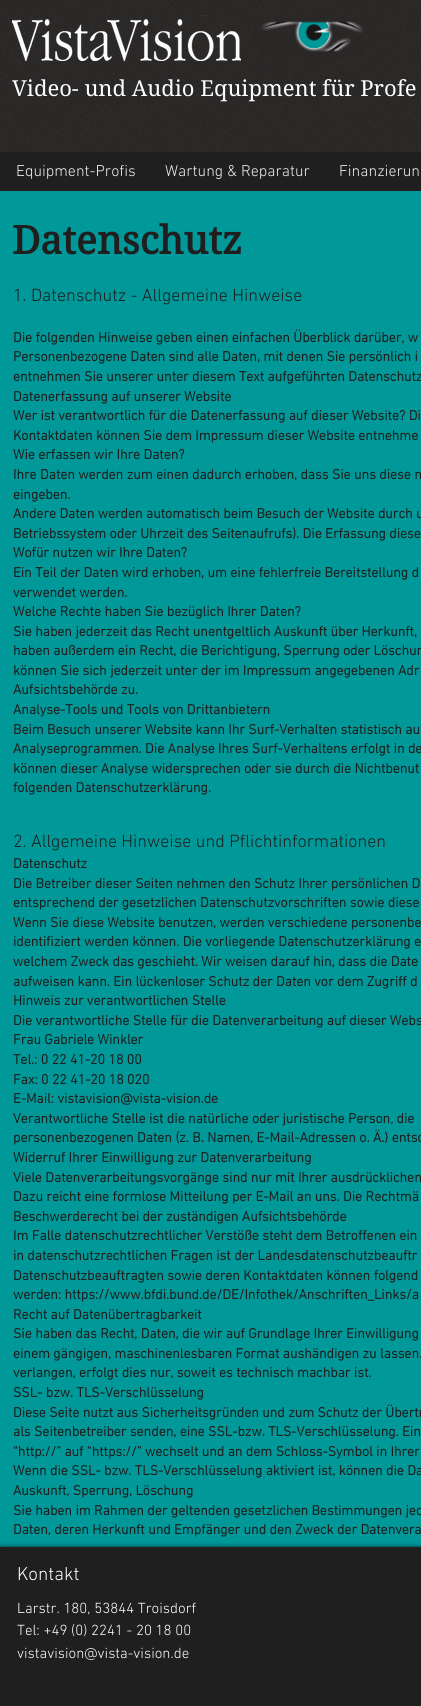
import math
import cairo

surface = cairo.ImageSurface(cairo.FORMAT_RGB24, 421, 1706)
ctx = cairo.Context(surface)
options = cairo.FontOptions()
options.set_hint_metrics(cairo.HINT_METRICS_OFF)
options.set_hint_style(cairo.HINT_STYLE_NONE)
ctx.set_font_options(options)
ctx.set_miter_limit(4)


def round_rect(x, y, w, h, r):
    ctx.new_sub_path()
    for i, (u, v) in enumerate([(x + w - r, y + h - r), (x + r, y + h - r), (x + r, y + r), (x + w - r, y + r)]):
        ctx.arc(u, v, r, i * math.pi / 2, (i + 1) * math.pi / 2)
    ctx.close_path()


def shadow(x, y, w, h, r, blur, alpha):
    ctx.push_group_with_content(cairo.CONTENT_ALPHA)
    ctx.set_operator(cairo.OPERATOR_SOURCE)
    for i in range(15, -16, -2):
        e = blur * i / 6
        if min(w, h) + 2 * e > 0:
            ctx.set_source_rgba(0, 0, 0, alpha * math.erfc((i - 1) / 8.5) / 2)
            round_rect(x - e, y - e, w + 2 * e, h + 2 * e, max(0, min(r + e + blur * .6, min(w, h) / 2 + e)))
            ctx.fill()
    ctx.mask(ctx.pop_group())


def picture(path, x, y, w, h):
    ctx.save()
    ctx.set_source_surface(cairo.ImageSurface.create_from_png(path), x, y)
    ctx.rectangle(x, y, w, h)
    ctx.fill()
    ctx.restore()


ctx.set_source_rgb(0.165, 0.153, 0.153)
ctx.paint()
picture("img1.png", 0, 0, 421, 152)
picture("img2.png", 12, 15, 229, 46)
picture("img3.png", 259, 17, 104, 39)
ctx.select_font_face("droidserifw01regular")
ctx.set_font_size(22)
ctx.set_source_rgb(1, 1, 1)
ctx.move_to(12, 96)
ctx.show_text("Video- und Audio Equipment für Profe")
ctx.set_source_rgb(0.122, 0.122, 0.122)
ctx.rectangle(0, 152, 421, 39)
ctx.fill()
ctx.select_font_face("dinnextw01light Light")
ctx.set_font_size(16)
ctx.set_source_rgb(0.933, 0.933, 0.933)
ctx.move_to(16, 176)
ctx.show_text("Equipment-Profis")
ctx.move_to(165, 176)
ctx.show_text("Wartung & Reparatur")
ctx.move_to(339, 176)
ctx.show_text("Finanzierun")
ctx.set_source_rgb(0, 0.596, 0.596)
ctx.rectangle(0, 191, 421, 1356)
ctx.fill()
ctx.select_font_face("droidserifw01regular", cairo.FONT_SLANT_NORMAL, cairo.FONT_WEIGHT_BOLD)
ctx.set_font_size(39)
ctx.set_source_rgb(0.122, 0.122, 0.122)
ctx.move_to(12, 254)
ctx.show_text("Datenschutz")
ctx.select_font_face("dinnextw01light Light")
ctx.set_font_size(18)
ctx.move_to(13, 301)
ctx.show_text("1. Datenschutz - Allgemeine Hinweise")
ctx.select_font_face("dinnextw01light", cairo.FONT_SLANT_NORMAL, cairo.FONT_WEIGHT_BOLD)
ctx.set_font_size(14)
ctx.move_to(13, 342)
ctx.show_text("Die folgenden Hinweise geben einen einfachen Überblick darüber, w")
ctx.move_to(13, 361)
ctx.show_text("Personenbezogene Daten sind alle Daten, mit denen Sie persönlich i")
ctx.move_to(13, 381)
ctx.show_text("entnehmen Sie unserer unter diesem Text aufgeführten Datenschutz")
ctx.move_to(13, 401)
ctx.show_text("Datenerfassung auf unserer Website")
ctx.move_to(13, 420)
ctx.show_text("Wer ist verantwortlich für die Datenerfassung auf dieser Website? Di")
ctx.move_to(13, 440)
ctx.show_text("Kontaktdaten können Sie dem Impressum dieser Website entnehme")
ctx.move_to(13, 459)
ctx.show_text("Wie erfassen wir Ihre Daten?")
ctx.move_to(13, 479)
ctx.show_text("Ihre Daten werden zum einen dadurch erhoben, dass Sie uns diese m")
ctx.move_to(13, 499)
ctx.show_text("eingeben.")
ctx.move_to(13, 518)
ctx.show_text("Andere Daten werden automatisch beim Besuch der Website durch u")
ctx.move_to(13, 538)
ctx.show_text("Betriebssystem oder Uhrzeit des Seitenaufrufs). Die Erfassung diese")
ctx.move_to(13, 557)
ctx.show_text("Wofür nutzen wir Ihre Daten?")
ctx.move_to(13, 577)
ctx.show_text("Ein Teil der Daten wird erhoben, um eine fehlerfreie Bereitstellung d")
ctx.move_to(13, 597)
ctx.show_text("verwendet werden.")
ctx.move_to(13, 616)
ctx.show_text("Welche Rechte haben Sie bezüglich Ihrer Daten?")
ctx.move_to(13, 636)
ctx.show_text("Sie haben jederzeit das Recht unentgeltlich Auskunft über Herkunft,")
ctx.move_to(13, 655)
ctx.show_text("haben außerdem ein Recht, die Berichtigung, Sperrung oder Löschun")
ctx.move_to(13, 675)
ctx.show_text("können Sie sich jederzeit unter der im Impressum angegebenen Adr")
ctx.move_to(13, 694)
ctx.show_text("Aufsichtsbehörde zu.")
ctx.move_to(13, 714)
ctx.show_text("Analyse-Tools und Tools von Drittanbietern")
ctx.move_to(13, 734)
ctx.show_text("Beim Besuch unserer Website kann Ihr Surf-Verhalten statistisch au")
ctx.move_to(13, 753)
ctx.show_text("Analyseprogrammen. Die Analyse Ihres Surf-Verhaltens erfolgt in de")
ctx.move_to(13, 773)
ctx.show_text("können dieser Analyse widersprechen oder sie durch die Nichtbenut")
ctx.move_to(13, 792)
ctx.show_text("folgenden Datenschutzerklärung.")
ctx.select_font_face("dinnextw01light Light")
ctx.set_font_size(18)
ctx.move_to(13, 847)
ctx.show_text("2. Allgemeine Hinweise und Pflichtinformationen")
ctx.select_font_face("dinnextw01light", cairo.FONT_SLANT_NORMAL, cairo.FONT_WEIGHT_BOLD)
ctx.set_font_size(14)
ctx.move_to(13, 868)
ctx.show_text("Datenschutz")
ctx.move_to(13, 888)
ctx.show_text("Die Betreiber dieser Seiten nehmen den Schutz Ihrer persönlichen D")
ctx.move_to(13, 907)
ctx.show_text("entsprechend der gesetzlichen Datenschutzvorschriften sowie diese")
ctx.move_to(13, 927)
ctx.show_text("Wenn Sie diese Website benutzen, werden verschiedene personenbe")
ctx.move_to(13, 946)
ctx.show_text("identifiziert werden können. Die vorliegende Datenschutzerklärung e")
ctx.move_to(13, 966)
ctx.show_text("welchem Zweck das geschieht. Wir weisen darauf hin, dass die Date")
ctx.move_to(13, 986)
ctx.show_text("aufweisen kann. Ein lückenloser Schutz der Daten vor dem Zugriff d")
ctx.move_to(13, 1005)
ctx.show_text("Hinweis zur verantwortlichen Stelle")
ctx.move_to(13, 1025)
ctx.show_text("Die verantwortliche Stelle für die Datenverarbeitung auf dieser Webs")
ctx.move_to(13, 1044)
ctx.show_text("Frau Gabriele Winkler")
ctx.move_to(13, 1064)
ctx.show_text("Tel.: 0 22 41-20 18 00")
ctx.move_to(13, 1084)
ctx.show_text("Fax: 0 22 41-20 18 020")
ctx.move_to(13, 1103)
ctx.show_text("E-Mail: vistavision@vista-vision.de")
ctx.move_to(13, 1123)
ctx.show_text("Verantwortliche Stelle ist die natürliche oder juristische Person, die")
ctx.move_to(13, 1142)
ctx.show_text("personenbezogenen Daten (z. B. Namen, E-Mail-Adressen o. Ä.) entsc")
ctx.move_to(13, 1162)
ctx.show_text("Widerruf Ihrer Einwilligung zur Datenverarbeitung")
ctx.move_to(13, 1182)
ctx.show_text("Viele Datenverarbeitungsvorgänge sind nur mit Ihrer ausdrücklichen")
ctx.move_to(13, 1201)
ctx.show_text("Dazu reicht eine formlose Mitteilung per E-Mail an uns. Die Rechtmä")
ctx.move_to(13, 1221)
ctx.show_text("Beschwerderecht bei der zuständigen Aufsichtsbehörde")
ctx.move_to(13, 1240)
ctx.show_text("Im Falle datenschutzrechtlicher Verstöße steht dem Betroffenen ein")
ctx.move_to(13, 1260)
ctx.show_text("in datenschutzrechtlichen Fragen ist der Landesdatenschutzbeauftr")
ctx.move_to(13, 1280)
ctx.show_text("Datenschutzbeauftragten sowie deren Kontaktdaten können folgend")
ctx.move_to(13, 1299)
ctx.show_text("werden: https://www.bfdi.bund.de/DE/Infothek/Anschriften_Links/a")
ctx.move_to(13, 1319)
ctx.show_text("Recht auf Datenübertragbarkeit")
ctx.move_to(13, 1338)
ctx.show_text("Sie haben das Recht, Daten, die wir auf Grundlage Ihrer Einwilligung")
ctx.move_to(13, 1358)
ctx.show_text("einem gängigen, maschinenlesbaren Format aushändigen zu lassen.")
ctx.move_to(13, 1377)
ctx.show_text("verlangen, erfolgt dies nur, soweit es technisch machbar ist.")
ctx.move_to(13, 1397)
ctx.show_text("SSL- bzw. TLS-Verschlüsselung")
ctx.move_to(13, 1417)
ctx.show_text("Diese Seite nutzt aus Sicherheitsgründen und zum Schutz der Übertr")
ctx.move_to(13, 1436)
ctx.show_text("als Seitenbetreiber senden, eine SSL-bzw. TLS-Verschlüsselung. Ein")
ctx.move_to(13, 1456)
ctx.show_text("“http://” auf “https://” wechselt und an dem Schloss-Symbol in Ihrer")
ctx.move_to(13, 1475)
ctx.show_text("Wenn die SSL- bzw. TLS-Verschlüsselung aktiviert ist, können die Da")
ctx.move_to(13, 1495)
ctx.show_text("Auskunft, Sperrung, Löschung")
ctx.move_to(13, 1515)
ctx.show_text("Sie haben im Rahmen der geltenden gesetzlichen Bestimmungen jed")
ctx.move_to(13, 1534)
ctx.show_text("Daten, deren Herkunft und Empfänger und den Zweck der Datenvera")
ctx.set_source_rgb(0, 0, 0)
shadow(0, 1547, 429, 159, 0, 2.5, 0.7)
ctx.set_source_rgb(0.122, 0.122, 0.122)
ctx.rectangle(0, 1547, 421, 159)
ctx.fill()
ctx.select_font_face("dinnextw01light Light")
ctx.set_font_size(19)
ctx.set_source_rgb(1, 1, 1)
ctx.move_to(17, 1580)
ctx.show_text("Kontakt")
ctx.set_font_size(15)
ctx.move_to(17, 1613)
ctx.show_text("Larstr. 180, 53844 Troisdorf")
ctx.move_to(17, 1635)
ctx.show_text("Tel: +49 (0) 2241 - 20 18 00")
ctx.move_to(17, 1658)
ctx.show_text("vistavision@vista-vision.de")
surface.write_to_png("page.png")
